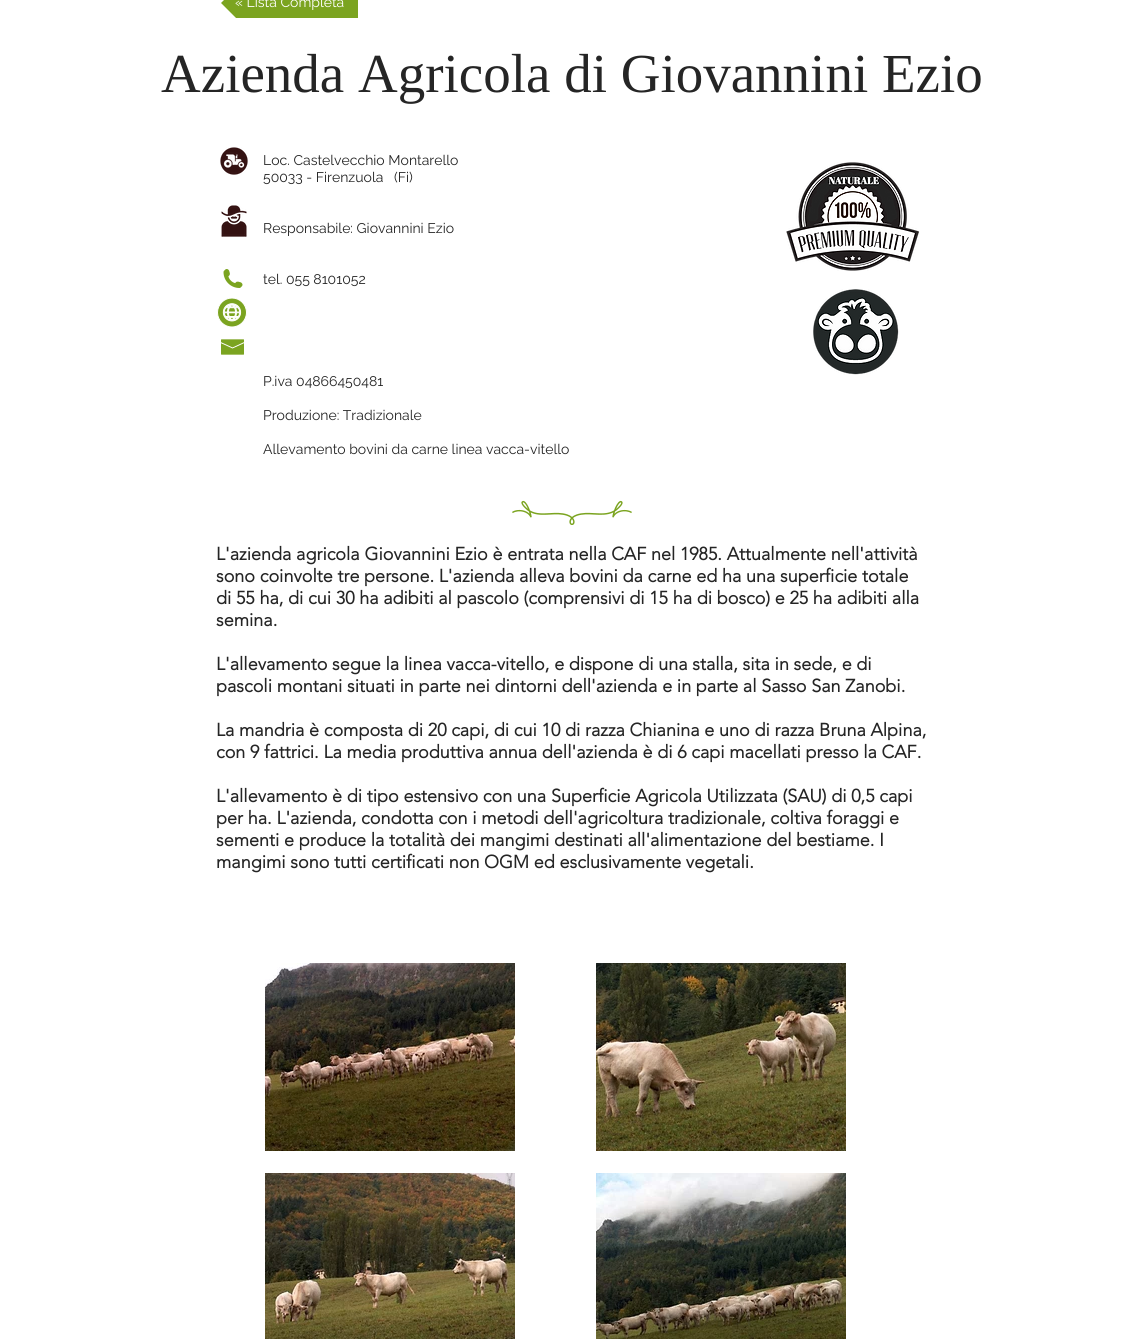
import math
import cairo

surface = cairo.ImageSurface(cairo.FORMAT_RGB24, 1144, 1339)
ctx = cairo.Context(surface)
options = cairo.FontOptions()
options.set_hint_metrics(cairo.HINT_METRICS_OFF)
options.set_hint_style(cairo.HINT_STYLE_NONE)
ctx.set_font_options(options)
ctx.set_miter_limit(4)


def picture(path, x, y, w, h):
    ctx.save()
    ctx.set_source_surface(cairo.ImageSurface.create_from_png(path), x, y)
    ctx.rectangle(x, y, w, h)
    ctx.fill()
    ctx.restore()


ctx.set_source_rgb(1, 1, 1)
ctx.paint()
ctx.set_source_rgb(0.482, 0.643, 0.125)
ctx.new_path()
ctx.move_to(271, 3)
ctx.line_to(221, 3)
ctx.line_to(271, -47)
ctx.close_path()
ctx.fill()
ctx.save()
ctx.rectangle(221, 0, 137, 18)
ctx.clip()
ctx.new_path()
ctx.move_to(221, 3)
ctx.line_to(271, 3)
ctx.line_to(271, 53)
ctx.close_path()
ctx.fill()
ctx.restore()
ctx.rectangle(271, 0, 87, 18)
ctx.fill()
ctx.select_font_face("Raleway")
ctx.set_font_size(14)
ctx.set_source_rgb(1, 1, 1)
ctx.move_to(235, 7)
ctx.show_text("« Lista Completa")
ctx.select_font_face("Liberation Serif")
ctx.set_font_size(55)
ctx.set_source_rgb(0.145, 0.145, 0.145)
ctx.move_to(161, 92)
ctx.show_text("Azienda Agricola di Giovannini Ezio")
picture("img1.png", 220, 147, 28, 28)
ctx.select_font_face("Raleway")
ctx.set_font_size(14)
ctx.move_to(263, 165)
ctx.show_text("Loc. Castelvecchio Montarello")
ctx.move_to(263, 182)
ctx.show_text("50033 - Firenzuola   (Fi)")
ctx.move_to(263, 233)
ctx.show_text("Responsabile: Giovannini Ezio")
ctx.move_to(263, 284)
ctx.show_text("tel. 055 8101052")
ctx.move_to(263, 386)
ctx.show_text("P.iva 04866450481")
ctx.move_to(263, 420)
ctx.show_text("Produzione: Tradizionale")
ctx.move_to(263, 454)
ctx.show_text("Allevamento bovini da carne linea vacca-vitello")
picture("img2.png", 786, 162, 133, 109)
picture("img3.png", 221, 205, 26, 32)
picture("img4.png", 223, 269, 20, 19)
picture("img5.png", 217, 298, 30, 29)
picture("img6.png", 813, 289, 86, 86)
picture("img7.png", 221, 339, 23, 16)
picture("img8.png", 512, 500, 120, 25)
ctx.select_font_face("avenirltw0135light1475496", cairo.FONT_SLANT_NORMAL, cairo.FONT_WEIGHT_BOLD)
ctx.set_font_size(18)
ctx.move_to(216, 560)
ctx.show_text("L'azienda agricola Giovannini Ezio è entrata nella CAF nel 1985. Attualmente nell'attività")
ctx.move_to(216, 582)
ctx.show_text("sono coinvolte tre persone. L'azienda alleva bovini da carne ed ha una superficie totale")
ctx.move_to(216, 604)
ctx.show_text("di 55 ha, di cui 30 ha adibiti al pascolo (comprensivi di 15 ha di bosco) e 25 ha adibiti alla")
ctx.move_to(216, 626)
ctx.show_text("semina.")
ctx.move_to(216, 670)
ctx.show_text("L'allevamento segue la linea vacca-vitello, e dispone di una stalla, sita in sede, e di")
ctx.move_to(216, 692)
ctx.show_text("pascoli montani situati in parte nei dintorni dell'azienda e in parte al Sasso San Zanobi.")
ctx.move_to(216, 736)
ctx.show_text("La mandria è composta di 20 capi, di cui 10 di razza Chianina e uno di razza Bruna Alpina,")
ctx.move_to(216, 758)
ctx.show_text("con 9 fattrici. La media produttiva annua dell'azienda è di 6 capi macellati presso la CAF.")
ctx.move_to(216, 802)
ctx.show_text("L'allevamento è di tipo estensivo con una Superficie Agricola Utilizzata (SAU) di 0,5 capi")
ctx.move_to(216, 824)
ctx.show_text("per ha. L'azienda, condotta con i metodi dell'agricoltura tradizionale, coltiva foraggi e")
ctx.move_to(216, 846)
ctx.show_text("sementi e produce la totalità dei mangimi destinati all'alimentazione del bestiame. I")
ctx.move_to(216, 868)
ctx.show_text("mangimi sono tutti certificati non OGM ed esclusivamente vegetali.")
picture("img9.png", 265, 963, 250, 188)
picture("img10.png", 596, 963, 250, 188)
picture("img11.png", 265, 1173, 250, 166)
picture("img12.png", 596, 1173, 250, 166)
surface.write_to_png("page.png")
